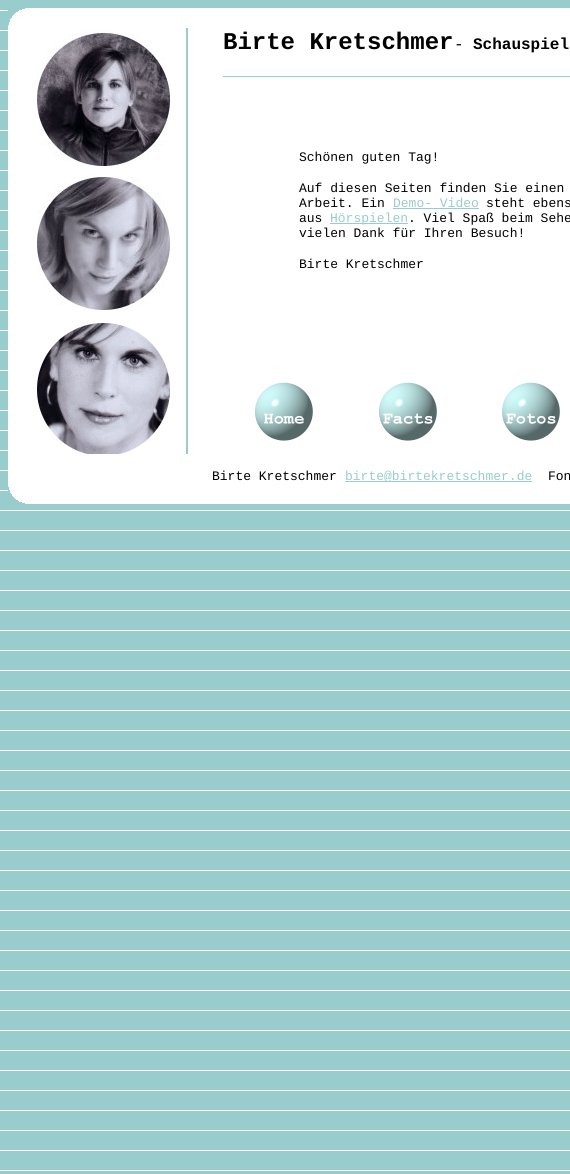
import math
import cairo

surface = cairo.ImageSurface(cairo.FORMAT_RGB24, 570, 1174)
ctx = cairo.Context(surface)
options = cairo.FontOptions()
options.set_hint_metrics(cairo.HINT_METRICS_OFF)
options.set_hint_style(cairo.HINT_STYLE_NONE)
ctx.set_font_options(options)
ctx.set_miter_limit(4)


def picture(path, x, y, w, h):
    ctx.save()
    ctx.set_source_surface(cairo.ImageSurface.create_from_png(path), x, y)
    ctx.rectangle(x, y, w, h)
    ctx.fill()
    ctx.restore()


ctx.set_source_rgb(0.6, 0.8, 0.8)
ctx.paint()
picture("img1.png", 0, 10, 570, 1161)
ctx.set_source_rgb(1, 1, 1)
ctx.rectangle(8, 8, 562, 20)
ctx.fill()
picture("img2.png", 8, 8, 17, 17)
ctx.rectangle(8, 28, 562, 456)
ctx.fill()
picture("img3.png", 36, 28, 152, 426)
ctx.select_font_face("Liberation Mono", cairo.FONT_SLANT_NORMAL, cairo.FONT_WEIGHT_BOLD)
ctx.set_font_size(24)
ctx.set_source_rgb(0, 0, 0)
ctx.move_to(223, 49)
ctx.show_text("Birte Kretschmer")
ctx.select_font_face("Liberation Mono")
ctx.set_font_size(16)
ctx.move_to(454, 49)
ctx.show_text("-")
ctx.select_font_face("Liberation Mono", cairo.FONT_SLANT_NORMAL, cairo.FONT_WEIGHT_BOLD)
ctx.move_to(473, 49)
ctx.show_text("Schauspiel")
ctx.set_source_rgb(0.6, 0.8, 0.8)
ctx.rectangle(223, 76, 347, 1)
ctx.fill()
ctx.select_font_face("Liberation Mono")
ctx.set_font_size(13)
ctx.set_source_rgb(0, 0, 0)
ctx.move_to(299, 161)
ctx.show_text("Schönen guten Tag!")
ctx.move_to(299, 192)
ctx.show_text("Auf diesen Seiten finden Sie einen")
ctx.move_to(299, 207)
ctx.show_text("Arbeit. Ein")
ctx.set_source_rgb(0.6, 0.8, 0.8)
ctx.move_to(393, 207)
ctx.show_text("Demo- Video")
ctx.rectangle(393, 208, 86, 1)
ctx.fill()
ctx.set_source_rgb(0, 0, 0)
ctx.move_to(486, 207)
ctx.show_text("steht ebens")
ctx.move_to(299, 222)
ctx.show_text("aus")
ctx.set_source_rgb(0.6, 0.8, 0.8)
ctx.rectangle(330, 223, 78, 1)
ctx.fill()
ctx.move_to(330, 222)
ctx.show_text("Hörspielen")
ctx.set_source_rgb(0, 0, 0)
ctx.move_to(408, 222)
ctx.show_text(". Viel Spaß beim Sehe")
ctx.move_to(299, 237)
ctx.show_text("vielen Dank für Ihren Besuch!")
ctx.move_to(299, 268)
ctx.show_text("Birte Kretschmer")
picture("img4.png", 255, 382, 58, 59)
picture("img5.png", 379, 382, 58, 59)
picture("img6.png", 502, 382, 58, 59)
ctx.move_to(212, 480)
ctx.show_text("Birte Kretschmer")
ctx.set_source_rgb(0.6, 0.8, 0.8)
ctx.rectangle(345, 481, 187, 1)
ctx.fill()
ctx.move_to(345, 480)
ctx.show_text("birte@birtekretschmer.de")
ctx.set_source_rgb(0, 0, 0)
ctx.move_to(548, 480)
ctx.show_text("Fon")
ctx.set_source_rgb(1, 1, 1)
ctx.rectangle(8, 484, 562, 20)
ctx.fill()
picture("img7.png", 8, 487, 17, 17)
surface.write_to_png("page.png")
